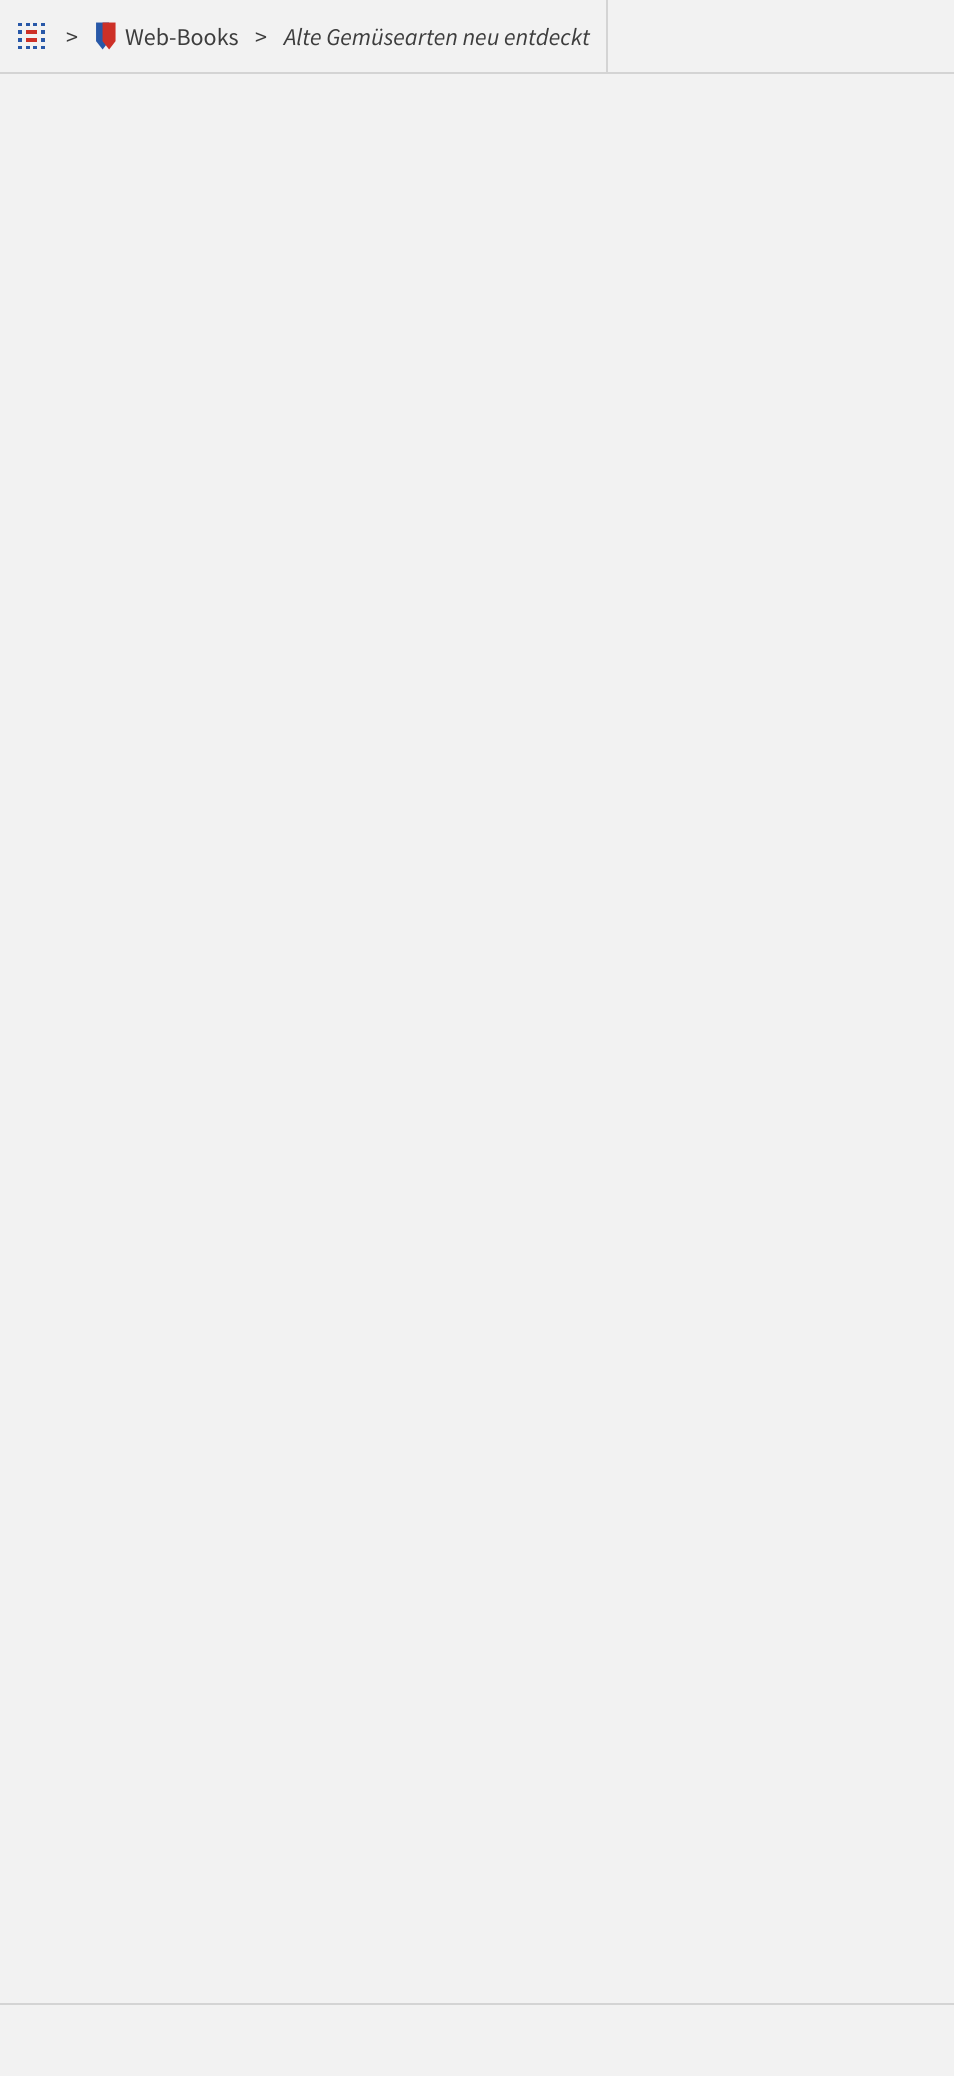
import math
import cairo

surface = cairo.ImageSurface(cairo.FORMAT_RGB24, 954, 2076)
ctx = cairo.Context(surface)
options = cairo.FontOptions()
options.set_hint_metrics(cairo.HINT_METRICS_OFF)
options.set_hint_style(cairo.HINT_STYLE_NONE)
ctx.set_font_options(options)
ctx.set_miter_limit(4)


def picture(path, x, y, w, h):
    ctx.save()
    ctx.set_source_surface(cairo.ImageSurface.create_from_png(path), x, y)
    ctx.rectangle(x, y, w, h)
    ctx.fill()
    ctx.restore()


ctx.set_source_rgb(0.949, 0.949, 0.949)
ctx.paint()
ctx.set_source_rgb(0.831, 0.831, 0.831)
ctx.rectangle(0, 72, 954, 2)
ctx.fill()
ctx.rectangle(606, 0, 2, 72)
ctx.fill()
picture("img1.png", 18, 23, 27, 26)
ctx.select_font_face("Source Sans Pro")
ctx.set_font_size(24)
ctx.set_source_rgb(0.239, 0.239, 0.239)
ctx.move_to(66, 45)
ctx.show_text(">")
picture("img2.png", 96, 22, 20, 28)
ctx.move_to(125, 45)
ctx.show_text("Web-Books")
ctx.move_to(255, 45)
ctx.show_text(">")
ctx.select_font_face("Source Sans Pro", cairo.FONT_SLANT_ITALIC)
ctx.move_to(284, 45)
ctx.show_text("Alte Gemüsearten neu entdeckt")
ctx.set_source_rgb(0.831, 0.831, 0.831)
ctx.rectangle(0, 2003, 954, 2)
ctx.fill()
surface.write_to_png("page.png")
